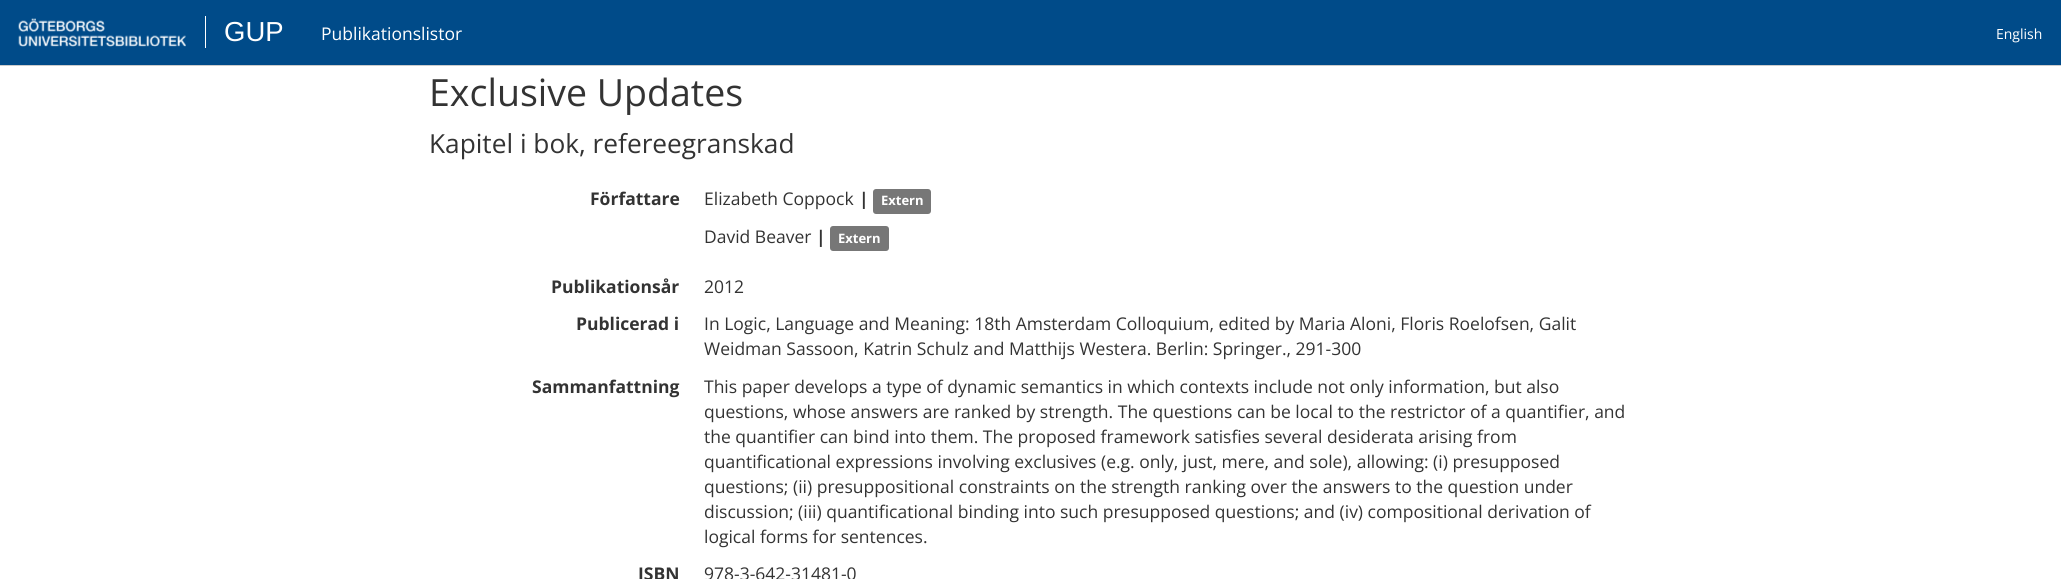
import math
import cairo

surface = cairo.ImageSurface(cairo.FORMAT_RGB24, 2061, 579)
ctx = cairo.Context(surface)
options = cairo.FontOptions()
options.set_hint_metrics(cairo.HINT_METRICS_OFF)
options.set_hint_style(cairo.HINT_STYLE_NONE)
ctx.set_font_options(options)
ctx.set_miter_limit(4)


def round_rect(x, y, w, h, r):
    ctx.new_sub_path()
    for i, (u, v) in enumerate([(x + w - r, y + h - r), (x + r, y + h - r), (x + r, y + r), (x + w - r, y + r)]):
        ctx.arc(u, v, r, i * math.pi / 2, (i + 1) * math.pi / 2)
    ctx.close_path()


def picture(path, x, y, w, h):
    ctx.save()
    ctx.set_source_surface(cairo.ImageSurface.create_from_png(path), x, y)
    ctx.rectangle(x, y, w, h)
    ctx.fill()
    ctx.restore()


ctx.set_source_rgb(1, 1, 1)
ctx.paint()
ctx.set_source_rgb(0, 0.294, 0.537)
ctx.rectangle(0, 0, 2061, 65)
ctx.fill()
ctx.set_source_rgb(0.8, 0.8, 0.8)
ctx.rectangle(0, 65, 2061, 1)
ctx.fill()
picture("img1.png", 18, 18, 168, 29)
ctx.set_source_rgb(1, 1, 1)
ctx.rectangle(205, 16, 1, 32)
ctx.fill()
ctx.select_font_face("Liberation Sans")
ctx.set_font_size(27.5)
ctx.move_to(224, 41)
ctx.show_text("GUP")
ctx.select_font_face("Open Sans")
ctx.set_font_size(17.5)
ctx.move_to(321, 40)
ctx.show_text("Publikationslistor")
ctx.set_font_size(14)
ctx.move_to(1996, 39)
ctx.show_text("English")
ctx.set_font_size(37.5)
ctx.set_source_rgb(0.2, 0.2, 0.2)
ctx.move_to(429, 106)
ctx.show_text("Exclusive Updates")
ctx.set_font_size(26.25)
ctx.move_to(429, 153)
ctx.show_text("Kapitel i bok, refereegranskad")
ctx.select_font_face("Open Sans", cairo.FONT_SLANT_NORMAL, cairo.FONT_WEIGHT_BOLD)
ctx.set_font_size(17.5)
ctx.move_to(590, 205)
ctx.show_text("Författare")
ctx.select_font_face("Open Sans")
ctx.move_to(704, 205)
ctx.show_text("Elizabeth Coppock")
ctx.select_font_face("Open Sans", cairo.FONT_SLANT_NORMAL, cairo.FONT_WEIGHT_BOLD)
ctx.move_to(859, 205)
ctx.show_text("|")
ctx.set_source_rgb(0.467, 0.467, 0.467)
round_rect(873, 189, 58, 25, 3)
ctx.fill()
ctx.set_font_size(13)
ctx.set_source_rgb(1, 1, 1)
ctx.move_to(881, 205)
ctx.show_text("Extern")
ctx.select_font_face("Open Sans")
ctx.set_font_size(17.5)
ctx.set_source_rgb(0.2, 0.2, 0.2)
ctx.move_to(704, 243)
ctx.show_text("David Beaver")
ctx.select_font_face("Open Sans", cairo.FONT_SLANT_NORMAL, cairo.FONT_WEIGHT_BOLD)
ctx.move_to(816, 243)
ctx.show_text("|")
ctx.set_source_rgb(0.467, 0.467, 0.467)
round_rect(830, 226, 59, 25, 3)
ctx.fill()
ctx.set_font_size(13)
ctx.set_source_rgb(1, 1, 1)
ctx.move_to(838, 243)
ctx.show_text("Extern")
ctx.set_font_size(17.5)
ctx.set_source_rgb(0.2, 0.2, 0.2)
ctx.move_to(551, 293)
ctx.show_text("Publikationsår")
ctx.select_font_face("Open Sans")
ctx.move_to(704, 293)
ctx.show_text("2012")
ctx.select_font_face("Open Sans", cairo.FONT_SLANT_NORMAL, cairo.FONT_WEIGHT_BOLD)
ctx.move_to(576, 330)
ctx.show_text("Publicerad i")
ctx.select_font_face("Open Sans")
ctx.move_to(704, 330)
ctx.show_text("In Logic, Language and Meaning: 18th Amsterdam Colloquium, edited by Maria Aloni, Floris Roelofsen, Galit")
ctx.move_to(704, 355)
ctx.show_text("Weidman Sassoon, Katrin Schulz and Matthijs Westera. Berlin: Springer., 291-300")
ctx.select_font_face("Open Sans", cairo.FONT_SLANT_NORMAL, cairo.FONT_WEIGHT_BOLD)
ctx.move_to(532, 393)
ctx.show_text("Sammanfattning")
ctx.select_font_face("Open Sans")
ctx.move_to(704, 393)
ctx.show_text("This paper develops a type of dynamic semantics in which contexts include not only information, but also")
ctx.move_to(704, 418)
ctx.show_text("questions, whose answers are ranked by strength. The questions can be local to the restrictor of a quantifier, and")
ctx.move_to(704, 443)
ctx.show_text("the quantifier can bind into them. The proposed framework satisfies several desiderata arising from")
ctx.move_to(704, 468)
ctx.show_text("quantificational expressions involving exclusives (e.g. only, just, mere, and sole), allowing: (i) presupposed")
ctx.move_to(704, 493)
ctx.show_text("questions; (ii) presuppositional constraints on the strength ranking over the answers to the question under")
ctx.move_to(704, 518)
ctx.show_text("discussion; (iii) quantificational binding into such presupposed questions; and (iv) compositional derivation of")
ctx.move_to(704, 543)
ctx.show_text("logical forms for sentences.")
ctx.select_font_face("Open Sans", cairo.FONT_SLANT_NORMAL, cairo.FONT_WEIGHT_BOLD)
ctx.move_to(638, 580)
ctx.show_text("ISBN")
ctx.select_font_face("Open Sans")
ctx.move_to(704, 580)
ctx.show_text("978-3-642-31481-0")
surface.write_to_png("page.png")
